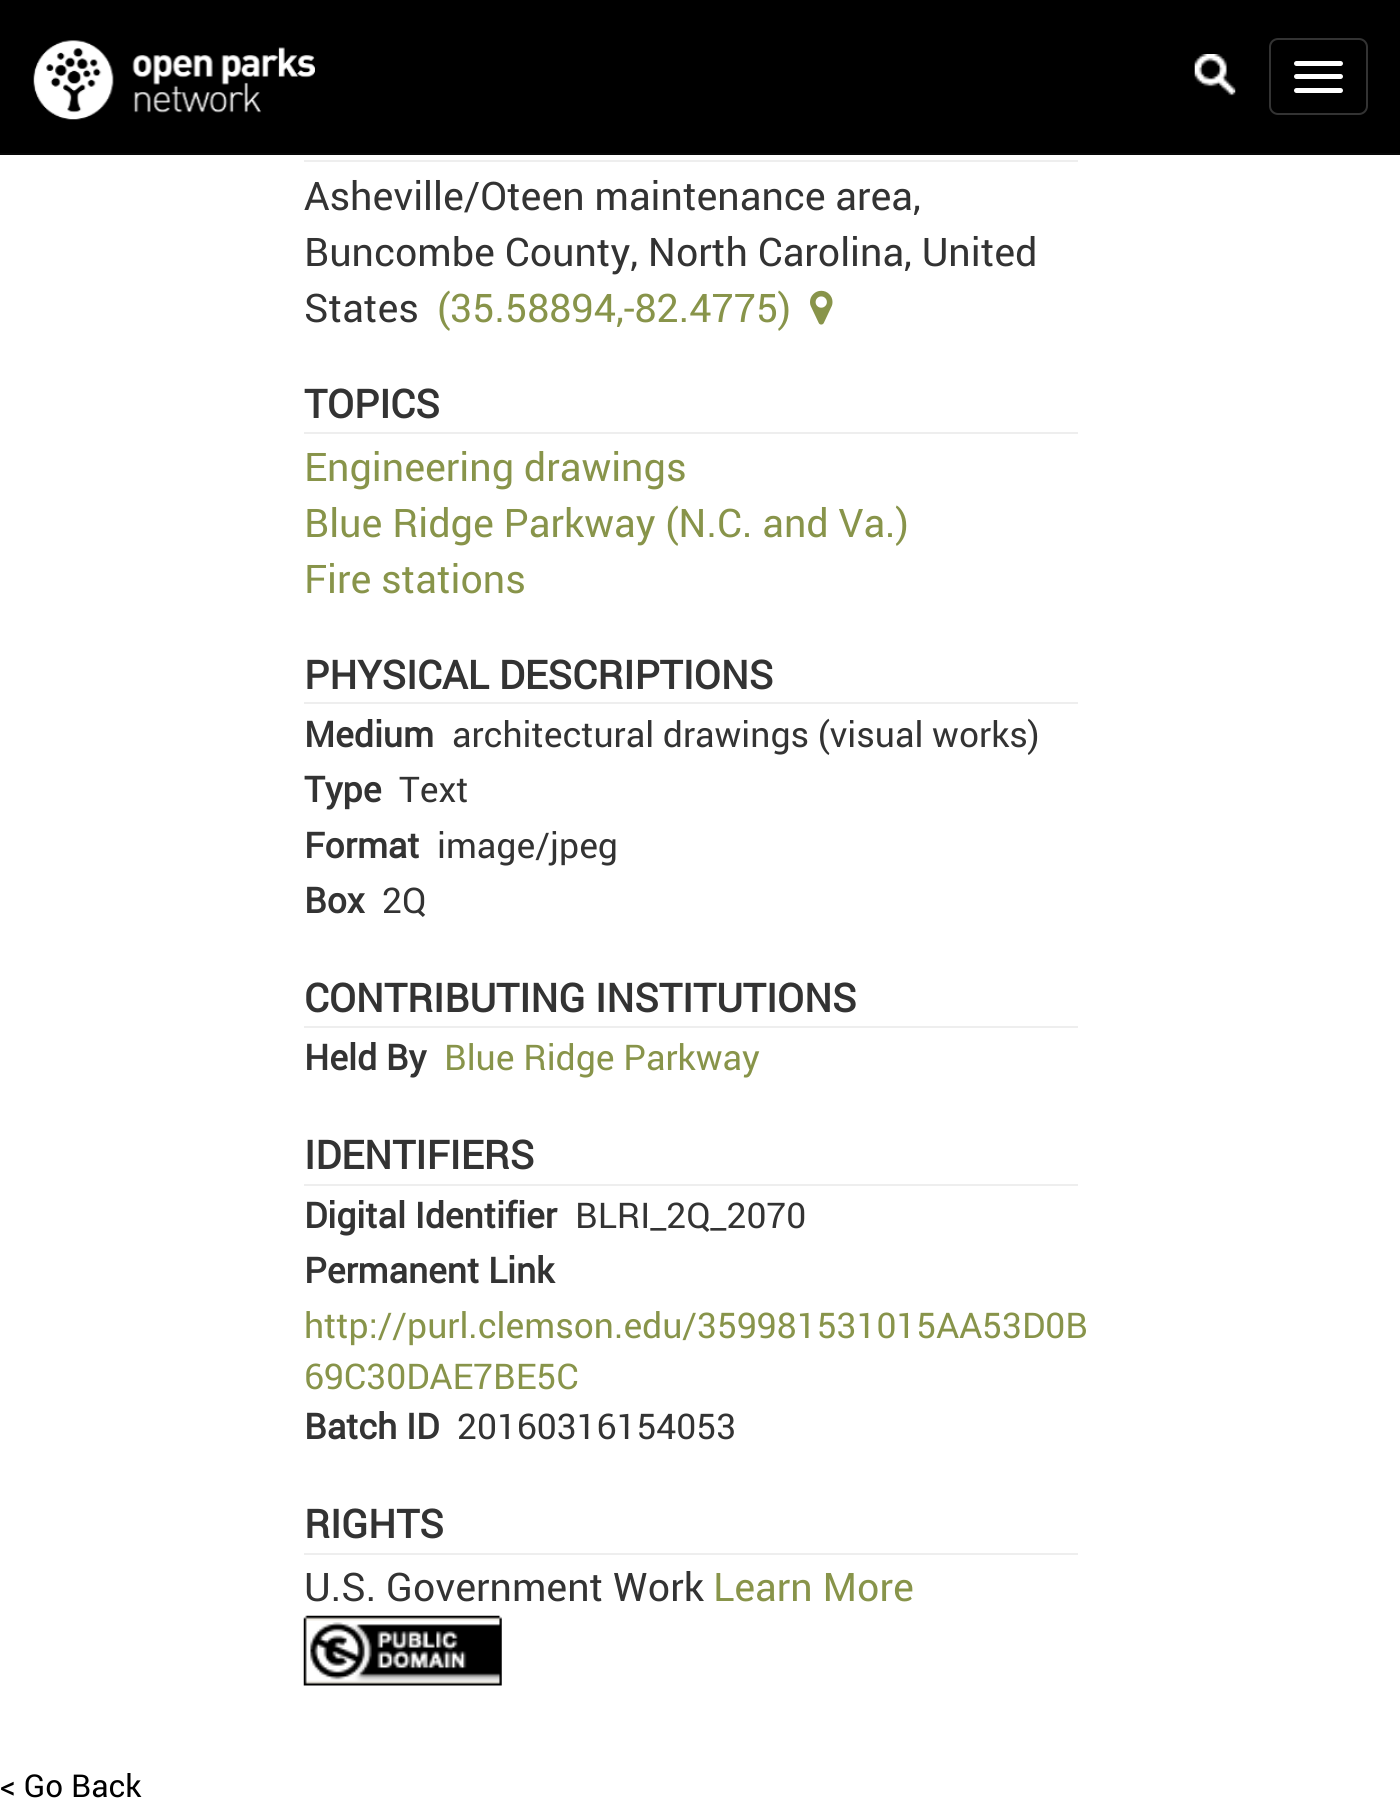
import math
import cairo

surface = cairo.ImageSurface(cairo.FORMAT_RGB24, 1400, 1800)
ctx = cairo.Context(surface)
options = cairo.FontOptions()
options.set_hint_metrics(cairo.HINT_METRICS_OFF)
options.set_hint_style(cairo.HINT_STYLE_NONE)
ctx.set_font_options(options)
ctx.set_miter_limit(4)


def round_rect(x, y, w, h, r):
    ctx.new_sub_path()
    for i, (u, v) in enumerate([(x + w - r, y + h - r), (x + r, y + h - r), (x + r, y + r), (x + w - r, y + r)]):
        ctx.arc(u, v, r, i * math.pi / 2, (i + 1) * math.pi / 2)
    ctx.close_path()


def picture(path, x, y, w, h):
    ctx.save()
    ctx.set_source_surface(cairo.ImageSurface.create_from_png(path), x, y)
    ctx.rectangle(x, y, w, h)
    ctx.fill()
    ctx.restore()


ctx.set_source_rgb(1, 1, 1)
ctx.paint()
ctx.set_source_rgb(0, 0, 0)
ctx.rectangle(0, 0, 1400, 153)
ctx.fill()
ctx.set_source_rgb(0.031, 0.031, 0.031)
ctx.rectangle(0, 153, 1400, 2)
ctx.fill()
picture("img1.png", 33, 40, 282, 80)
picture("img2.png", 1194, 54, 42, 42)
round_rect(1270, 39, 97, 75, 8)
ctx.set_source_rgb(0.2, 0.2, 0.2)
ctx.stroke()
ctx.set_source_rgb(1, 1, 1)
round_rect(1294, 61, 49, 5, 2.5)
ctx.fill()
round_rect(1294, 74, 49, 5, 2.5)
ctx.fill()
round_rect(1294, 88, 49, 5, 2.5)
ctx.fill()
ctx.set_source_rgb(0.933, 0.933, 0.933)
ctx.rectangle(304, 160, 774, 2)
ctx.fill()
ctx.select_font_face("Roboto")
ctx.set_font_size(39.4)
ctx.set_source_rgb(0.2, 0.2, 0.2)
ctx.move_to(304, 210)
ctx.show_text("Asheville/Oteen maintenance area,")
ctx.move_to(304, 266)
ctx.show_text("Buncombe County, North Carolina, United")
ctx.move_to(304, 322)
ctx.show_text("States")
ctx.set_source_rgb(0.533, 0.58, 0.29)
ctx.move_to(437, 322)
ctx.show_text("(35.58894,-82.4775)")
picture("img3.png", 810, 290, 23, 35)
ctx.set_source_rgb(0.933, 0.933, 0.933)
ctx.rectangle(304, 432, 774, 2)
ctx.fill()
ctx.select_font_face("Roboto", cairo.FONT_SLANT_NORMAL, cairo.FONT_WEIGHT_BOLD)
ctx.set_source_rgb(0.2, 0.2, 0.2)
ctx.move_to(304, 418)
ctx.show_text("TOPICS")
ctx.select_font_face("Roboto")
ctx.set_source_rgb(0.533, 0.58, 0.29)
ctx.move_to(304, 481)
ctx.show_text("Engineering drawings")
ctx.move_to(304, 537)
ctx.show_text("Blue Ridge Parkway (N.C. and Va.)")
ctx.move_to(304, 593)
ctx.show_text("Fire stations")
ctx.set_source_rgb(0.933, 0.933, 0.933)
ctx.rectangle(304, 702, 774, 2)
ctx.fill()
ctx.select_font_face("Roboto", cairo.FONT_SLANT_NORMAL, cairo.FONT_WEIGHT_BOLD)
ctx.set_source_rgb(0.2, 0.2, 0.2)
ctx.move_to(304, 689)
ctx.show_text("PHYSICAL DESCRIPTIONS")
ctx.set_font_size(35.4)
ctx.move_to(304, 747)
ctx.show_text("Medium")
ctx.select_font_face("Roboto")
ctx.move_to(452, 747)
ctx.show_text("architectural drawings (visual works)")
ctx.select_font_face("Roboto", cairo.FONT_SLANT_NORMAL, cairo.FONT_WEIGHT_BOLD)
ctx.move_to(304, 802)
ctx.show_text("Type")
ctx.select_font_face("Roboto")
ctx.move_to(399, 802)
ctx.show_text("Text")
ctx.select_font_face("Roboto", cairo.FONT_SLANT_NORMAL, cairo.FONT_WEIGHT_BOLD)
ctx.move_to(304, 858)
ctx.show_text("Format")
ctx.select_font_face("Roboto")
ctx.move_to(437, 858)
ctx.show_text("image/jpeg")
ctx.select_font_face("Roboto", cairo.FONT_SLANT_NORMAL, cairo.FONT_WEIGHT_BOLD)
ctx.move_to(304, 913)
ctx.show_text("Box")
ctx.select_font_face("Roboto")
ctx.move_to(382, 913)
ctx.show_text("2Q")
ctx.set_source_rgb(0.933, 0.933, 0.933)
ctx.rectangle(304, 1026, 774, 2)
ctx.fill()
ctx.select_font_face("Roboto", cairo.FONT_SLANT_NORMAL, cairo.FONT_WEIGHT_BOLD)
ctx.set_font_size(39.4)
ctx.set_source_rgb(0.2, 0.2, 0.2)
ctx.move_to(304, 1012)
ctx.show_text("CONTRIBUTING INSTITUTIONS")
ctx.set_font_size(35.4)
ctx.move_to(304, 1070)
ctx.show_text("Held By")
ctx.select_font_face("Roboto")
ctx.set_source_rgb(0.533, 0.58, 0.29)
ctx.move_to(444, 1070)
ctx.show_text("Blue Ridge Parkway")
ctx.set_source_rgb(0.933, 0.933, 0.933)
ctx.rectangle(304, 1184, 774, 2)
ctx.fill()
ctx.select_font_face("Roboto", cairo.FONT_SLANT_NORMAL, cairo.FONT_WEIGHT_BOLD)
ctx.set_font_size(39.4)
ctx.set_source_rgb(0.2, 0.2, 0.2)
ctx.move_to(304, 1169)
ctx.show_text("IDENTIFIERS")
ctx.set_font_size(35.4)
ctx.move_to(304, 1228)
ctx.show_text("Digital Identifier")
ctx.select_font_face("Roboto")
ctx.move_to(575, 1228)
ctx.show_text("BLRI_2Q_2070")
ctx.select_font_face("Roboto", cairo.FONT_SLANT_NORMAL, cairo.FONT_WEIGHT_BOLD)
ctx.move_to(304, 1283)
ctx.show_text("Permanent Link")
ctx.select_font_face("Roboto")
ctx.set_source_rgb(0.533, 0.58, 0.29)
ctx.move_to(304, 1338)
ctx.show_text("http://purl.clemson.edu/359981531015AA53D0B")
ctx.move_to(304, 1389)
ctx.show_text("69C30DAE7BE5C")
ctx.select_font_face("Roboto", cairo.FONT_SLANT_NORMAL, cairo.FONT_WEIGHT_BOLD)
ctx.set_source_rgb(0.2, 0.2, 0.2)
ctx.move_to(304, 1439)
ctx.show_text("Batch ID")
ctx.select_font_face("Roboto")
ctx.move_to(457, 1439)
ctx.show_text("20160316154053")
ctx.set_source_rgb(0.933, 0.933, 0.933)
ctx.rectangle(304, 1553, 774, 2)
ctx.fill()
ctx.select_font_face("Roboto", cairo.FONT_SLANT_NORMAL, cairo.FONT_WEIGHT_BOLD)
ctx.set_font_size(39.4)
ctx.set_source_rgb(0.2, 0.2, 0.2)
ctx.move_to(304, 1538)
ctx.show_text("RIGHTS")
ctx.select_font_face("Roboto")
ctx.move_to(304, 1601)
ctx.show_text("U.S. Government Work")
ctx.set_source_rgb(0.533, 0.58, 0.29)
ctx.move_to(713, 1601)
ctx.show_text("Learn More")
picture("img4.png", 303, 1615, 199, 71)
ctx.set_font_size(31.5)
ctx.set_source_rgb(0, 0, 0)
ctx.move_to(0, 1797)
ctx.show_text("< Go Back")
surface.write_to_png("page.png")
